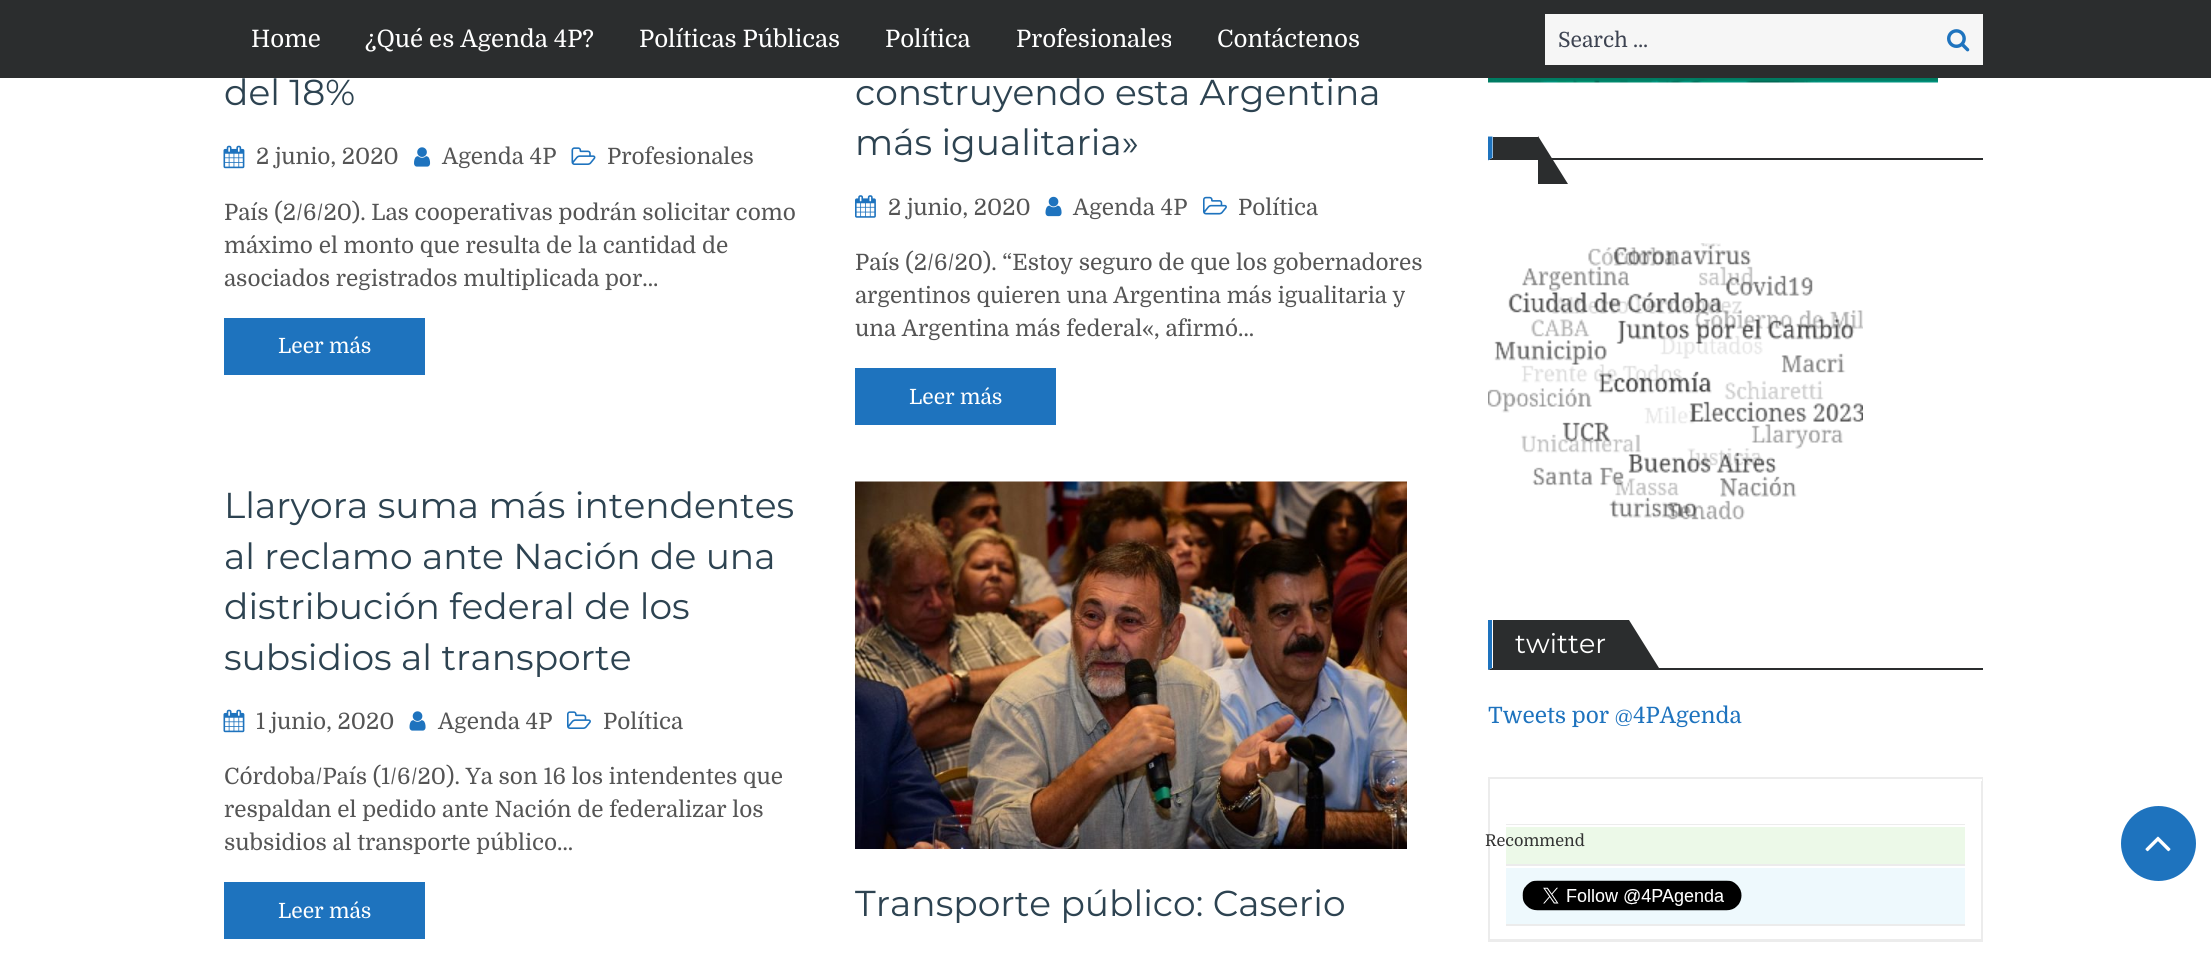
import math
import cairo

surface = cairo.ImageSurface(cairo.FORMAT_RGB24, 2211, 955)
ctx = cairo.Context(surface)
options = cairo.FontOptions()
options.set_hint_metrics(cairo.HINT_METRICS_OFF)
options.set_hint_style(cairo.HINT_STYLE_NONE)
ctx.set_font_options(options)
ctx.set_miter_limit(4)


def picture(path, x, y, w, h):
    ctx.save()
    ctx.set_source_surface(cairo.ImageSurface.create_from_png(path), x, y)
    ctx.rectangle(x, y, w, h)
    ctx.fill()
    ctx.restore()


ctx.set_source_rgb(1, 1, 1)
ctx.paint()
ctx.set_source_rgb(0.169, 0.176, 0.18)
ctx.rectangle(0, 0, 2211, 78)
ctx.fill()
ctx.select_font_face("Domine")
ctx.set_font_size(24)
ctx.set_source_rgb(1, 1, 1)
ctx.move_to(251, 47)
ctx.show_text("Home")
ctx.move_to(365, 47)
ctx.show_text("¿Qué es Agenda 4P?")
ctx.move_to(639, 47)
ctx.show_text("Políticas Públicas")
ctx.move_to(885, 47)
ctx.show_text("Política")
ctx.move_to(1016, 47)
ctx.show_text("Profesionales")
ctx.move_to(1217, 47)
ctx.show_text("Contáctenos")
ctx.set_source_rgb(0.961, 0.961, 0.961)
ctx.rectangle(1545, 14, 438, 51)
ctx.fill()
ctx.set_font_size(21)
ctx.set_source_rgb(0.239, 0.263, 0.318)
ctx.move_to(1558, 47)
ctx.show_text("Search …")
picture("img1.png", 1947, 29, 23, 23)
ctx.select_font_face("Montserrat")
ctx.set_font_size(36)
ctx.set_source_rgb(0.176, 0.263, 0.318)
ctx.move_to(224, 105)
ctx.show_text("del 18%")
picture("img2.png", 223, 145, 22, 24)
ctx.select_font_face("Domine")
ctx.set_font_size(22.5)
ctx.set_source_rgb(0.333, 0.333, 0.333)
ctx.move_to(256, 164)
ctx.show_text("2 junio, 2020")
picture("img3.png", 414, 147, 17, 20)
ctx.move_to(442, 164)
ctx.show_text("Agenda 4P")
picture("img4.png", 571, 147, 25, 18)
ctx.move_to(607, 164)
ctx.show_text("Profesionales")
ctx.move_to(224, 220)
ctx.show_text("País (2/6/20). Las cooperativas podrán solicitar como")
ctx.move_to(224, 253)
ctx.show_text("máximo el monto que resulta de la cantidad de")
ctx.move_to(224, 286)
ctx.show_text("asociados registrados multiplicada por…")
ctx.set_source_rgb(0.118, 0.451, 0.745)
ctx.rectangle(224, 318, 201, 57)
ctx.fill()
ctx.set_font_size(21)
ctx.set_source_rgb(1, 1, 1)
ctx.move_to(278, 353)
ctx.show_text("Leer más")
ctx.select_font_face("Montserrat")
ctx.set_font_size(36)
ctx.set_source_rgb(0.176, 0.263, 0.318)
ctx.move_to(855, 105)
ctx.show_text("construyendo esta Argentina")
ctx.move_to(855, 155)
ctx.show_text("más igualitaria»")
picture("img5.png", 855, 195, 21, 23)
ctx.select_font_face("Domine")
ctx.set_font_size(22.5)
ctx.set_source_rgb(0.333, 0.333, 0.333)
ctx.move_to(888, 215)
ctx.show_text("2 junio, 2020")
picture("img6.png", 1045, 196, 17, 21)
ctx.move_to(1073, 215)
ctx.show_text("Agenda 4P")
picture("img7.png", 1203, 196, 24, 19)
ctx.move_to(1238, 215)
ctx.show_text("Política")
ctx.move_to(855, 270)
ctx.show_text("País (2/6/20). “Estoy seguro de que los gobernadores")
ctx.move_to(855, 303)
ctx.show_text("argentinos quieren una Argentina más igualitaria y")
ctx.move_to(855, 336)
ctx.show_text("una Argentina más federal«, afirmó…")
ctx.set_source_rgb(0.118, 0.451, 0.745)
ctx.rectangle(855, 368, 201, 57)
ctx.fill()
ctx.set_font_size(21)
ctx.set_source_rgb(1, 1, 1)
ctx.move_to(909, 404)
ctx.show_text("Leer más")
ctx.select_font_face("Montserrat")
ctx.set_font_size(36)
ctx.set_source_rgb(0.176, 0.263, 0.318)
ctx.move_to(224, 518)
ctx.show_text("Llaryora suma más intendentes")
ctx.move_to(224, 569)
ctx.show_text("al reclamo ante Nación de una")
ctx.move_to(224, 619)
ctx.show_text("distribución federal de los")
ctx.move_to(224, 670)
ctx.show_text("subsidios al transporte")
picture("img2.png", 223, 709, 22, 24)
ctx.select_font_face("Domine")
ctx.set_font_size(22.5)
ctx.set_source_rgb(0.333, 0.333, 0.333)
ctx.move_to(256, 729)
ctx.show_text("1 junio, 2020")
picture("img8.png", 409, 711, 17, 20)
ctx.move_to(438, 729)
ctx.show_text("Agenda 4P")
picture("img9.png", 567, 711, 24, 18)
ctx.move_to(603, 729)
ctx.show_text("Política")
ctx.move_to(224, 784)
ctx.show_text("Córdoba/País (1/6/20). Ya son 16 los intendentes que")
ctx.move_to(224, 817)
ctx.show_text("respaldan el pedido ante Nación de federalizar los")
ctx.move_to(224, 850)
ctx.show_text("subsidios al transporte público…")
ctx.set_source_rgb(0.118, 0.451, 0.745)
ctx.rectangle(224, 882, 201, 57)
ctx.fill()
ctx.set_font_size(21)
ctx.set_source_rgb(1, 1, 1)
ctx.move_to(278, 918)
ctx.show_text("Leer más")
picture("img10.png", 855, 481, 552, 368)
ctx.select_font_face("Montserrat")
ctx.set_font_size(36)
ctx.set_source_rgb(0.176, 0.263, 0.318)
ctx.move_to(855, 916)
ctx.show_text("Transporte público: Caserio")
picture("img11.png", 1488, 78, 450, 5)
ctx.set_source_rgb(0.169, 0.176, 0.18)
ctx.new_path()
ctx.move_to(1983, 160)
ctx.line_to(1488, 160)
ctx.line_to(1492, 158)
ctx.line_to(1983, 158)
ctx.close_path()
ctx.fill()
ctx.set_source_rgb(0.118, 0.451, 0.745)
ctx.new_path()
ctx.move_to(1488, 160.5)
ctx.line_to(1488, 136.5)
ctx.line_to(1492.5, 136.5)
ctx.line_to(1492.5, 157.5)
ctx.close_path()
ctx.fill()
ctx.set_source_rgb(0.169, 0.176, 0.18)
ctx.rectangle(1493, 137, 45, 21)
ctx.fill()
ctx.new_path()
ctx.move_to(1568, 184)
ctx.line_to(1538, 184)
ctx.line_to(1538, 136)
ctx.close_path()
ctx.fill()
picture("img12.png", 1488, 243, 375, 277)
ctx.new_path()
ctx.move_to(1983, 670)
ctx.line_to(1488, 670)
ctx.line_to(1492, 668)
ctx.line_to(1983, 668)
ctx.close_path()
ctx.fill()
ctx.set_source_rgb(0.118, 0.451, 0.745)
ctx.new_path()
ctx.move_to(1488, 670)
ctx.line_to(1488, 620)
ctx.line_to(1492, 620)
ctx.line_to(1492, 668)
ctx.close_path()
ctx.fill()
ctx.set_source_rgb(0.169, 0.176, 0.18)
ctx.rectangle(1493, 620, 136, 48)
ctx.fill()
ctx.set_font_size(27)
ctx.set_source_rgb(1, 1, 1)
ctx.move_to(1515, 653)
ctx.show_text("twitter")
ctx.set_source_rgb(0.169, 0.176, 0.18)
ctx.new_path()
ctx.move_to(1659, 668)
ctx.line_to(1629, 668)
ctx.line_to(1629, 620)
ctx.close_path()
ctx.fill()
ctx.select_font_face("Domine")
ctx.set_font_size(22.5)
ctx.set_source_rgb(0.118, 0.451, 0.745)
ctx.move_to(1488, 723)
ctx.show_text("Tweets por @4PAgenda")
ctx.rectangle(1489, 778, 493, 163)
ctx.set_source_rgb(0.922, 0.922, 0.922)
ctx.stroke()
ctx.set_source_rgb(1, 1, 1)
ctx.rectangle(1981, 779, 1, 2)
ctx.fill()
ctx.set_source_rgb(0.922, 0.922, 0.922)
ctx.rectangle(1490, 939, 492, 1)
ctx.fill()
ctx.rectangle(1506, 824, 459, 1)
ctx.fill()
ctx.set_source_rgb(0.922, 0.976, 0.91)
ctx.rectangle(1506, 827, 459, 37)
ctx.fill()
ctx.set_source_rgb(0.922, 0.922, 0.922)
ctx.rectangle(1506, 864, 459, 2)
ctx.fill()
ctx.set_font_size(16.25)
ctx.set_source_rgb(0.2, 0.2, 0.2)
ctx.move_to(1485, 846)
ctx.show_text("Recommend")
ctx.set_source_rgb(0.933, 0.976, 0.992)
ctx.rectangle(1506, 868, 459, 56)
ctx.fill()
ctx.set_source_rgb(0.922, 0.922, 0.922)
ctx.rectangle(1506, 924, 459, 2)
ctx.fill()
picture("img13.png", 1522, 880, 220, 31)
ctx.set_source_rgb(0.118, 0.451, 0.745)
ctx.arc(2158.5, 843.5, 37.5, 0, 2 * math.pi)
ctx.fill()
picture("img14.png", 2145, 836, 26, 16)
surface.write_to_png("page.png")
